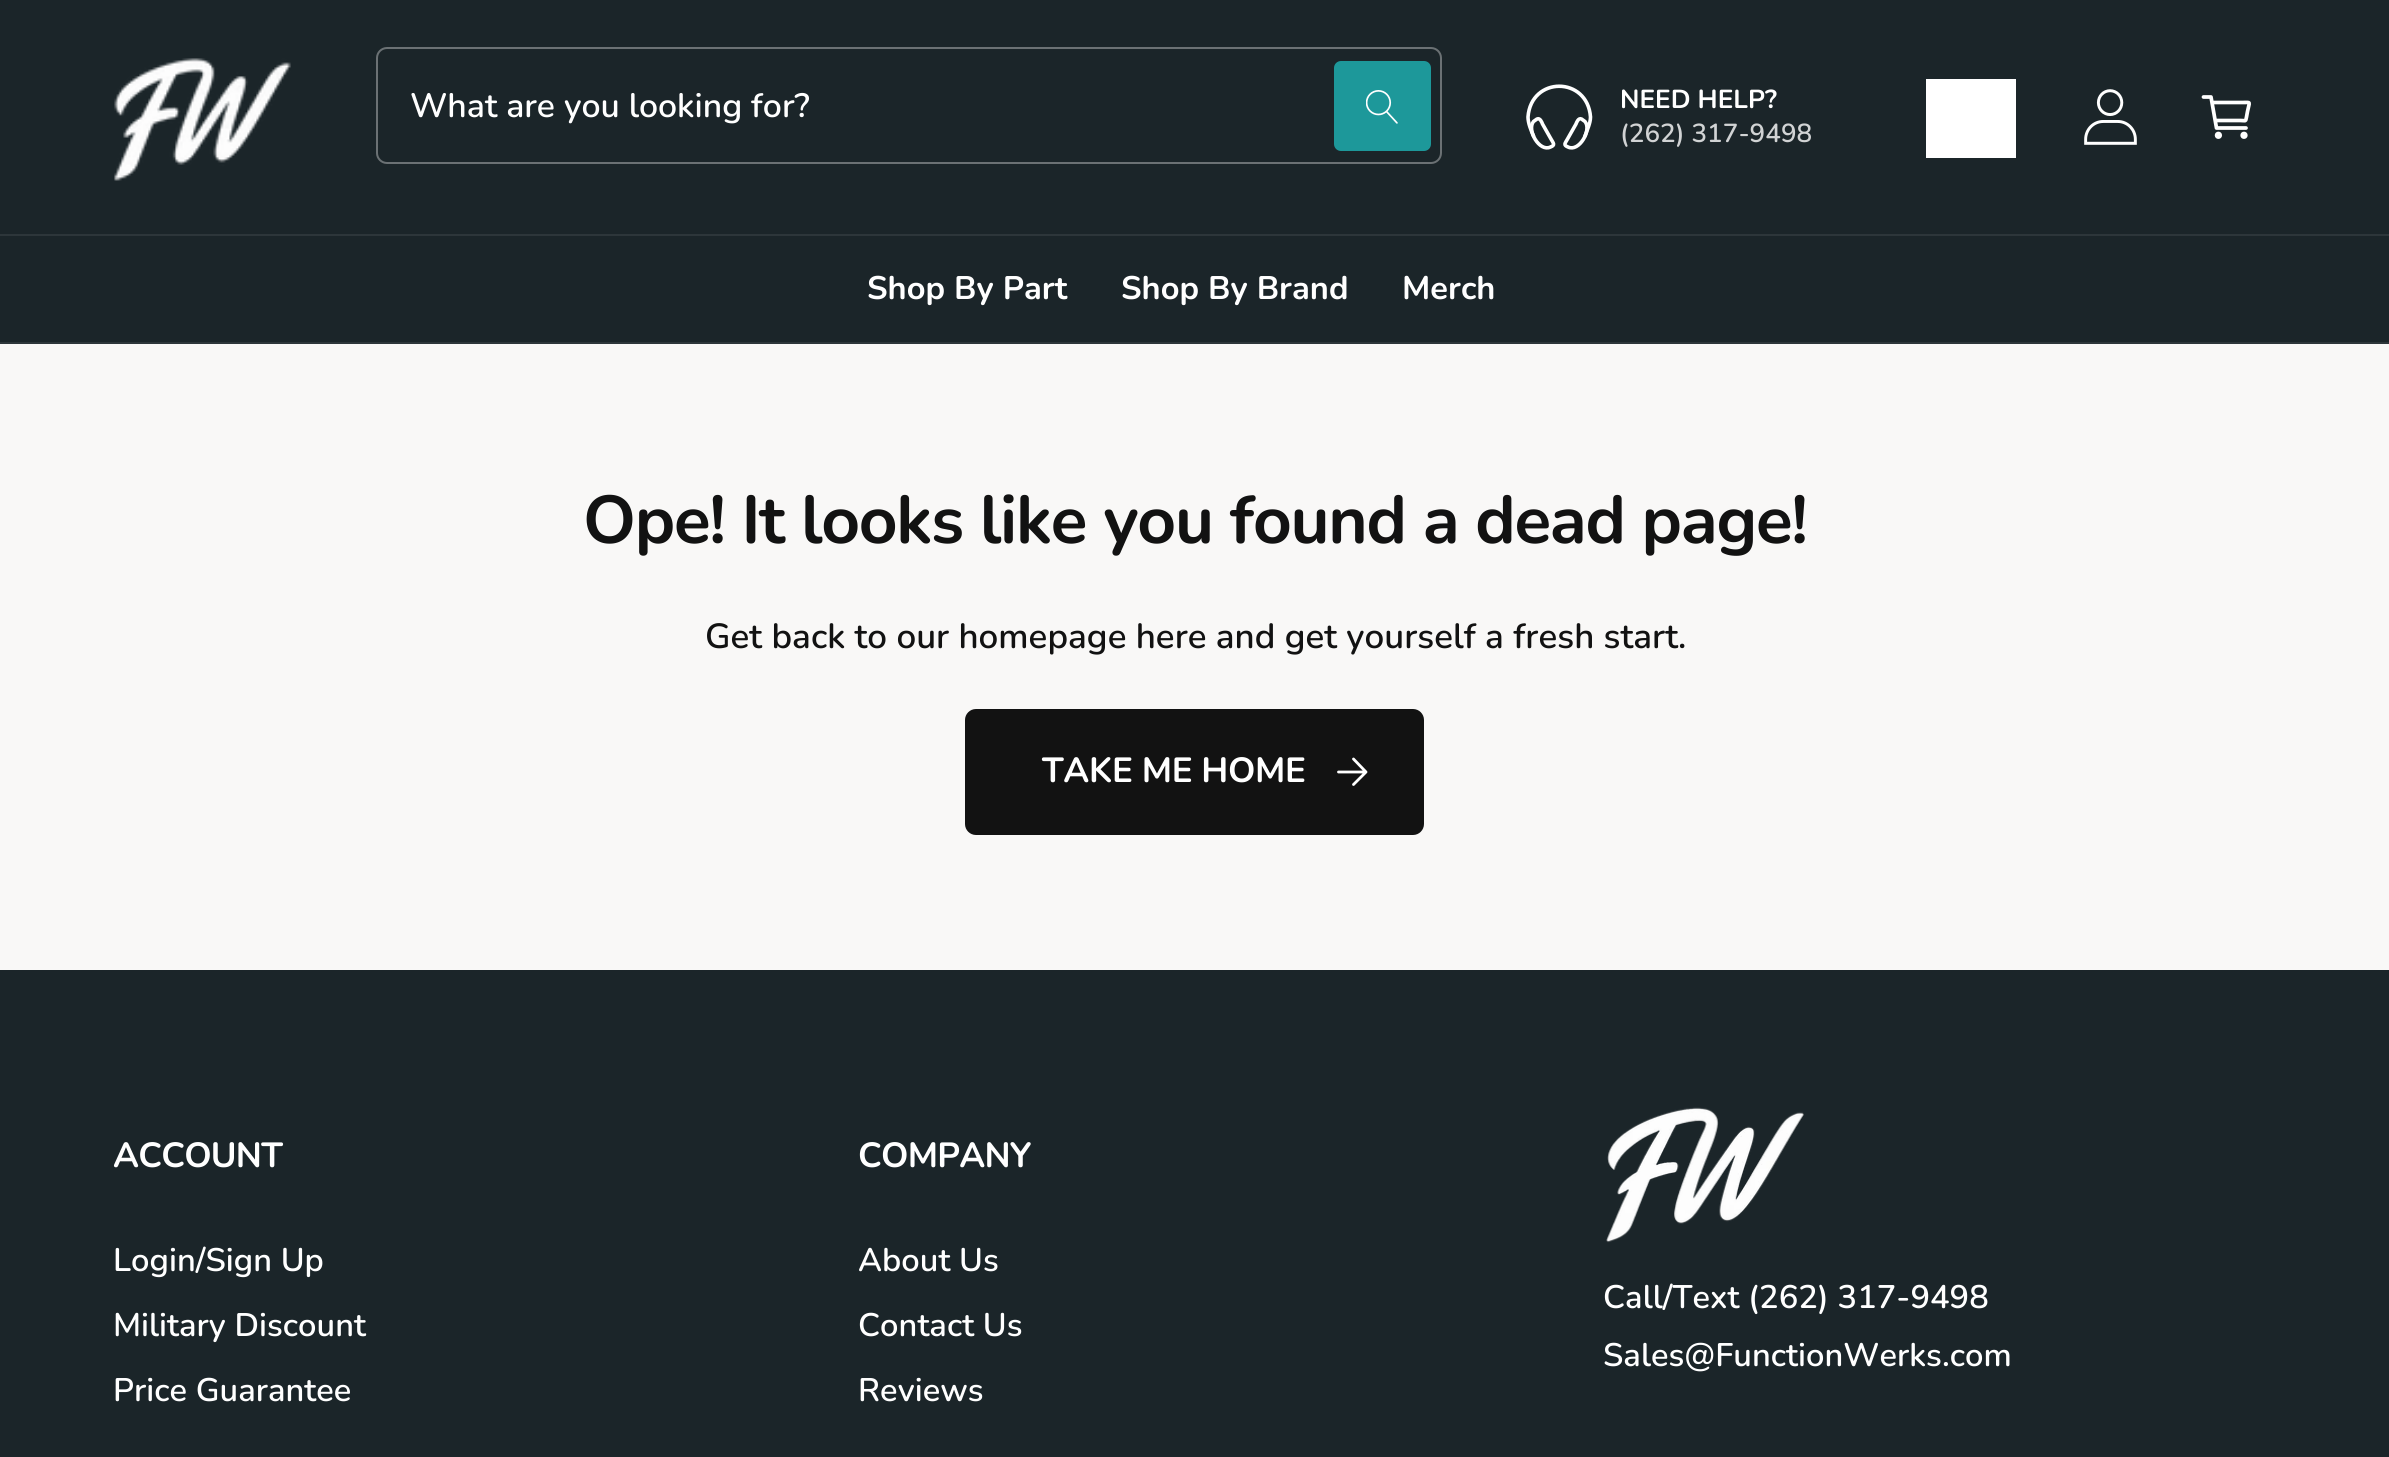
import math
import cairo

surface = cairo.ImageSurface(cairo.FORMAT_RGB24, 2389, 1457)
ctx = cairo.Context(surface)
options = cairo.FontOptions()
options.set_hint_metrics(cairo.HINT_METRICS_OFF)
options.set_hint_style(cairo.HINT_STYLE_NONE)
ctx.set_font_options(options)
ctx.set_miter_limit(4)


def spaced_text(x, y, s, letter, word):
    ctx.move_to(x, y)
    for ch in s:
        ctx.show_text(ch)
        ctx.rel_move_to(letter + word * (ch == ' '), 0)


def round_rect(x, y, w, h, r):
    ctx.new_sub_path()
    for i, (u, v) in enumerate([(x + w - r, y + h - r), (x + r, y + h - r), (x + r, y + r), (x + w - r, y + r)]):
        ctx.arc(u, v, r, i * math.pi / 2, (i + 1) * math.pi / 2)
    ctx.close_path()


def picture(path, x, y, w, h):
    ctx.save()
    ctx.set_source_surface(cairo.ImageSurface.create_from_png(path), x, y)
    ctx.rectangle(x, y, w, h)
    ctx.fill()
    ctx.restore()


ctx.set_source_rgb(0.976, 0.969, 0.965)
ctx.paint()
ctx.set_source_rgb(0.106, 0.145, 0.161)
ctx.rectangle(0, 0, 2389, 342)
ctx.fill()
picture("img1.png", 114, 58, 177, 123)
ctx.set_source_rgb(0.114, 0.596, 0.604)
round_rect(1334, 61, 97, 90, 7)
ctx.fill()
picture("img2.png", 1366, 90, 32, 34)
round_rect(377, 48, 1064, 115, 10)
ctx.set_source_rgba(1, 1, 1, 0.35)
ctx.stroke()
ctx.select_font_face("Nunito SemiBold")
ctx.set_font_size(33.75)
ctx.set_source_rgb(1, 1, 1)
ctx.move_to(410, 117)
ctx.show_text("What are you looking for?")
ctx.new_path()
ctx.move_to(1533.5, 136)
ctx.curve_to(1531, 130.5, 1528, 123, 1528, 117)
ctx.curve_to(1531, 76, 1587.5, 76, 1590.5, 117)
ctx.curve_to(1590.5, 123, 1587, 130.5, 1585, 136)
ctx.set_line_width(3.6)
ctx.set_line_cap(cairo.LINE_CAP_ROUND)
ctx.set_line_join(cairo.LINE_JOIN_ROUND)
ctx.stroke()
ctx.new_path()
ctx.move_to(1537, 119)
ctx.line_to(1533.5, 121.5)
ctx.curve_to(1526.5, 130, 1539.5, 152.5, 1550.5, 147)
ctx.curve_to(1555.5, 145, 1553.5, 143.5, 1551, 139)
ctx.line_to(1542.5, 124)
ctx.curve_to(1542, 122.5, 1540, 117.5, 1537, 119)
ctx.close_path()
ctx.move_to(1581.5, 119)
ctx.line_to(1585, 121.5)
ctx.curve_to(1592, 130, 1579, 152.5, 1568, 147)
ctx.curve_to(1563, 145, 1565, 143.5, 1567.5, 139)
ctx.line_to(1576, 124)
ctx.curve_to(1576.5, 122.5, 1578.5, 117.5, 1581.5, 119)
ctx.close_path()
ctx.set_line_cap(cairo.LINE_CAP_BUTT)
ctx.set_line_join(cairo.LINE_JOIN_MITER)
ctx.stroke()
ctx.select_font_face("Nunito", cairo.FONT_SLANT_NORMAL, cairo.FONT_WEIGHT_BOLD)
ctx.set_font_size(26)
spaced_text(1620, 108, "NEED HELP?", 0.05, 0)
ctx.select_font_face("Nunito SemiBold")
ctx.set_source_rgb(0.82, 0.827, 0.831)
spaced_text(1620, 142, "(262) 317-9498", 0.05, 0)
ctx.set_source_rgb(1, 1, 1)
ctx.rectangle(1926, 79, 90, 79)
ctx.fill()
picture("img3.png", 2084, 89, 53, 56)
ctx.arc(2218.4, 135.3, 1.8, 0, 2 * math.pi)
ctx.set_line_width(3.7)
ctx.stroke()
ctx.arc(2244, 135.3, 1.8, 0, 2 * math.pi)
ctx.stroke()
ctx.new_path()
ctx.move_to(2203.5, 97)
ctx.line_to(2211, 97)
ctx.line_to(2216.5, 128)
ctx.line_to(2246, 128)
ctx.move_to(2216.5, 120.5)
ctx.line_to(2240.5, 120.5)
ctx.curve_to(2246, 120.5, 2245.5, 122, 2246.5, 117)
ctx.line_to(2247.5, 111.5)
ctx.curve_to(2249.5, 101, 2251.5, 102.5, 2242.5, 102.5)
ctx.line_to(2213, 102.5)
ctx.set_line_cap(cairo.LINE_CAP_ROUND)
ctx.set_line_join(cairo.LINE_JOIN_ROUND)
ctx.stroke()
ctx.set_source_rgb(0.176, 0.212, 0.227)
ctx.rectangle(0, 234, 2389, 2)
ctx.fill()
ctx.rectangle(0, 342, 2389, 2)
ctx.fill()
ctx.select_font_face("Nunito", cairo.FONT_SLANT_NORMAL, cairo.FONT_WEIGHT_BOLD)
ctx.set_font_size(32.6)
ctx.set_source_rgb(1, 1, 1)
spaced_text(867, 299, "Shop By Part", 0.05, 0)
spaced_text(1121, 299, "Shop By Brand", 0.05, 0)
spaced_text(1402, 299, "Merch", 0.05, 0)
ctx.set_font_size(67.5)
ctx.set_source_rgb(0.071, 0.071, 0.071)
spaced_text(583, 543, "Ope! It looks like you found a dead page!", -1.3, 0)
ctx.select_font_face("Nunito SemiBold")
ctx.set_font_size(34.9)
spaced_text(705, 648, "Get back to our homepage here and get yourself a fresh start.", 0.05, 0)
round_rect(965, 709, 459, 126, 11)
ctx.fill()
ctx.select_font_face("Nunito", cairo.FONT_SLANT_NORMAL, cairo.FONT_WEIGHT_BOLD)
ctx.set_source_rgb(1, 1, 1)
spaced_text(1042, 782, "TAKE ME HOME", -0.3, 0)
ctx.new_path()
ctx.move_to(1353.5, 759)
ctx.line_to(1366, 772)
ctx.line_to(1353.5, 784.5)
ctx.move_to(1364.5, 772)
ctx.line_to(1338.5, 772)
ctx.set_line_width(2.8)
ctx.stroke()
ctx.set_source_rgb(0.106, 0.145, 0.161)
ctx.rectangle(0, 970, 2389, 487)
ctx.fill()
ctx.set_source_rgb(1, 1, 1)
spaced_text(113, 1167, "ACCOUNT", -0.75, 0)
ctx.select_font_face("Nunito SemiBold")
ctx.set_font_size(32.6)
spaced_text(113, 1271, "Login/Sign Up", 0.05, 0)
spaced_text(113, 1336, "Military Discount", 0.05, 0)
spaced_text(113, 1401, "Price Guarantee", 0.05, 0)
ctx.select_font_face("Nunito", cairo.FONT_SLANT_NORMAL, cairo.FONT_WEIGHT_BOLD)
ctx.set_font_size(34.9)
spaced_text(858, 1167, "COMPANY", -0.75, 0)
ctx.select_font_face("Nunito SemiBold")
ctx.set_font_size(32.6)
spaced_text(858, 1271, "About Us", 0.05, 0)
spaced_text(858, 1336, "Contact Us", 0.05, 0)
spaced_text(858, 1401, "Reviews", 0.05, 0)
picture("img4.png", 1606, 1107, 198, 136)
spaced_text(1603, 1308, "Call/Text (262) 317-9498", 0.05, 0)
spaced_text(1603, 1366, "Sales@FunctionWerks.com", 0.05, 0)
surface.write_to_png("page.png")
